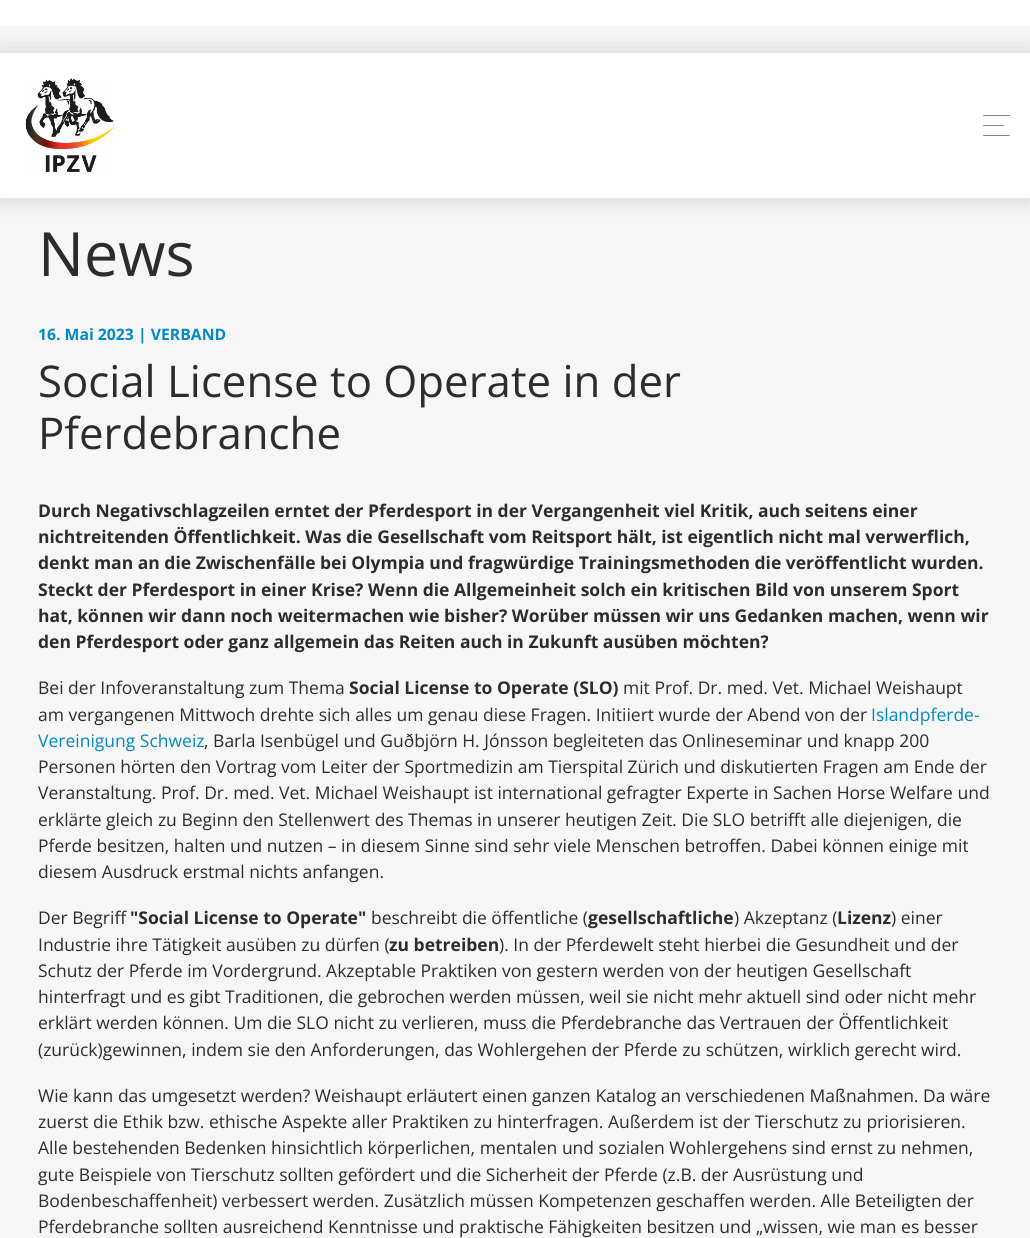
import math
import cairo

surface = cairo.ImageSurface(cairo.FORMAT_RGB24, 1030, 1238)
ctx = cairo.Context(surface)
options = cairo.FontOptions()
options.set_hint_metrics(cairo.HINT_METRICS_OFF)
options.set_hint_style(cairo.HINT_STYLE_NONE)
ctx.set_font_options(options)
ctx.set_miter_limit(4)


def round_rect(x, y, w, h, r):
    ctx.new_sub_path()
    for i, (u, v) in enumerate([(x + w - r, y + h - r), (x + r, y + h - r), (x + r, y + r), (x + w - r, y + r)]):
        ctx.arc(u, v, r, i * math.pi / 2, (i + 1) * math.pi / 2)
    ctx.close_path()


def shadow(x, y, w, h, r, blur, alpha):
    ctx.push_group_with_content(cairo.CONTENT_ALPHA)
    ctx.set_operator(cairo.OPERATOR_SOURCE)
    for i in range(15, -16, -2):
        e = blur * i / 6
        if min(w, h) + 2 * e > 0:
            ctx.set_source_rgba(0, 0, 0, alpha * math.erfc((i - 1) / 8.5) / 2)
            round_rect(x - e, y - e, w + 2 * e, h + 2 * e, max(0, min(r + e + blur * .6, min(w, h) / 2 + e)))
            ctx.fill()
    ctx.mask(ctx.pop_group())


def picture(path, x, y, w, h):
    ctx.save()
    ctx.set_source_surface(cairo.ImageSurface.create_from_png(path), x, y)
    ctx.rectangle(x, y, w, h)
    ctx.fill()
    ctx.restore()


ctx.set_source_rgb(0.961, 0.961, 0.961)
ctx.paint()
ctx.set_source_rgb(1, 1, 1)
ctx.rectangle(0, 0, 1030, 26)
ctx.fill()
ctx.set_source_rgb(0, 0, 0)
shadow(0, 53, 1030, 145, 0, 12.5, 0.15)
ctx.set_source_rgb(1, 1, 1)
ctx.rectangle(0, 53, 1030, 145)
ctx.fill()
picture("img1.png", 25, 78, 89, 94)
ctx.set_source_rgb(0.533, 0.533, 0.533)
round_rect(983, 115, 27, 1, 0.5)
ctx.fill()
round_rect(983, 125, 21, 1, 0.5)
ctx.fill()
round_rect(983, 135, 27, 1, 0.5)
ctx.fill()
ctx.select_font_face("Open Sans")
ctx.set_font_size(61)
ctx.set_source_rgb(0.173, 0.173, 0.173)
ctx.move_to(38, 276)
ctx.show_text("News")
ctx.select_font_face("Open Sans", cairo.FONT_SLANT_NORMAL, cairo.FONT_WEIGHT_BOLD)
ctx.set_font_size(15.75)
ctx.set_source_rgb(0, 0.537, 0.765)
ctx.move_to(38, 340)
ctx.show_text("16. Mai 2023 | VERBAND")
ctx.select_font_face("Open Sans")
ctx.set_font_size(43.75)
ctx.set_source_rgb(0.173, 0.173, 0.173)
ctx.move_to(38, 397)
ctx.show_text("Social License to Operate in der")
ctx.move_to(38, 449)
ctx.show_text("Pferdebranche")
ctx.select_font_face("Open Sans", cairo.FONT_SLANT_NORMAL, cairo.FONT_WEIGHT_BOLD)
ctx.set_font_size(17.5)
ctx.move_to(38, 517)
ctx.show_text("Durch Negativschlagzeilen erntet der Pferdesport in der Vergangenheit viel Kritik, auch seitens einer")
ctx.move_to(38, 543)
ctx.show_text("nichtreitenden Öffentlichkeit. Was die Gesellschaft vom Reitsport hält, ist eigentlich nicht mal verwerflich,")
ctx.move_to(38, 569)
ctx.show_text("denkt man an die Zwischenfälle bei Olympia und fragwürdige Trainingsmethoden die veröffentlicht wurden.")
ctx.move_to(38, 596)
ctx.show_text("Steckt der Pferdesport in einer Krise? Wenn die Allgemeinheit solch ein kritischen Bild von unserem Sport")
ctx.move_to(38, 622)
ctx.show_text("hat, können wir dann noch weitermachen wie bisher? Worüber müssen wir uns Gedanken machen, wenn wir")
ctx.move_to(38, 648)
ctx.show_text("den Pferdesport oder ganz allgemein das Reiten auch in Zukunft ausüben möchten?")
ctx.select_font_face("Open Sans")
ctx.move_to(38, 694)
ctx.show_text("Bei der Infoveranstaltung zum Thema")
ctx.select_font_face("Open Sans", cairo.FONT_SLANT_NORMAL, cairo.FONT_WEIGHT_BOLD)
ctx.move_to(349, 694)
ctx.show_text("Social License to Operate (SLO)")
ctx.select_font_face("Open Sans")
ctx.move_to(623, 694)
ctx.show_text("mit Prof. Dr. med. Vet. Michael Weishaupt")
ctx.move_to(38, 721)
ctx.show_text("am vergangenen Mittwoch drehte sich alles um genau diese Fragen. Initiiert wurde der Abend von der")
ctx.set_source_rgb(0, 0.537, 0.765)
ctx.move_to(871, 721)
ctx.show_text("Islandpferde-")
ctx.move_to(38, 747)
ctx.show_text("Vereinigung Schweiz")
ctx.set_source_rgb(0.173, 0.173, 0.173)
ctx.move_to(204, 747)
ctx.show_text(", Barla Isenbügel und Guðbjörn H. Jónsson begleiteten das Onlineseminar und knapp 200")
ctx.move_to(38, 773)
ctx.show_text("Personen hörten den Vortrag vom Leiter der Sportmedizin am Tierspital Zürich und diskutierten Fragen am Ende der")
ctx.move_to(38, 799)
ctx.show_text("Veranstaltung. Prof. Dr. med. Vet. Michael Weishaupt ist international gefragter Experte in Sachen Horse Welfare und")
ctx.move_to(38, 826)
ctx.show_text("erklärte gleich zu Beginn den Stellenwert des Themas in unserer heutigen Zeit. Die SLO betrifft alle diejenigen, die")
ctx.move_to(38, 852)
ctx.show_text("Pferde besitzen, halten und nutzen – in diesem Sinne sind sehr viele Menschen betroffen. Dabei können einige mit")
ctx.move_to(38, 878)
ctx.show_text("diesem Ausdruck erstmal nichts anfangen.")
ctx.move_to(38, 924)
ctx.show_text("Der Begriff")
ctx.select_font_face("Open Sans", cairo.FONT_SLANT_NORMAL, cairo.FONT_WEIGHT_BOLD)
ctx.move_to(130, 924)
ctx.show_text("\"Social License to Operate\"")
ctx.select_font_face("Open Sans")
ctx.move_to(371, 924)
ctx.show_text("beschreibt die öffentliche (")
ctx.select_font_face("Open Sans", cairo.FONT_SLANT_NORMAL, cairo.FONT_WEIGHT_BOLD)
ctx.move_to(588, 924)
ctx.show_text("gesellschaftliche")
ctx.select_font_face("Open Sans")
ctx.move_to(734, 924)
ctx.show_text(") Akzeptanz (")
ctx.select_font_face("Open Sans", cairo.FONT_SLANT_NORMAL, cairo.FONT_WEIGHT_BOLD)
ctx.move_to(837, 924)
ctx.show_text("Lizenz")
ctx.select_font_face("Open Sans")
ctx.move_to(891, 924)
ctx.show_text(") einer")
ctx.move_to(38, 951)
ctx.show_text("Industrie ihre Tätigkeit ausüben zu dürfen (")
ctx.select_font_face("Open Sans", cairo.FONT_SLANT_NORMAL, cairo.FONT_WEIGHT_BOLD)
ctx.move_to(389, 951)
ctx.show_text("zu betreiben")
ctx.select_font_face("Open Sans")
ctx.move_to(499, 951)
ctx.show_text("). In der Pferdewelt steht hierbei die Gesundheit und der")
ctx.move_to(38, 977)
ctx.show_text("Schutz der Pferde im Vordergrund. Akzeptable Praktiken von gestern werden von der heutigen Gesellschaft")
ctx.move_to(38, 1003)
ctx.show_text("hinterfragt und es gibt Traditionen, die gebrochen werden müssen, weil sie nicht mehr aktuell sind oder nicht mehr")
ctx.move_to(38, 1029)
ctx.show_text("erklärt werden können. Um die SLO nicht zu verlieren, muss die Pferdebranche das Vertrauen der Öffentlichkeit")
ctx.move_to(38, 1056)
ctx.show_text("(zurück)gewinnen, indem sie den Anforderungen, das Wohlergehen der Pferde zu schützen, wirklich gerecht wird.")
ctx.move_to(38, 1102)
ctx.show_text("Wie kann das umgesetzt werden? Weishaupt erläutert einen ganzen Katalog an verschiedenen Maßnahmen. Da wäre")
ctx.move_to(38, 1128)
ctx.show_text("zuerst die Ethik bzw. ethische Aspekte aller Praktiken zu hinterfragen. Außerdem ist der Tierschutz zu priorisieren.")
ctx.move_to(38, 1154)
ctx.show_text("Alle bestehenden Bedenken hinsichtlich körperlichen, mentalen und sozialen Wohlergehens sind ernst zu nehmen,")
ctx.move_to(38, 1181)
ctx.show_text("gute Beispiele von Tierschutz sollten gefördert und die Sicherheit der Pferde (z.B. der Ausrüstung und")
ctx.move_to(38, 1207)
ctx.show_text("Bodenbeschaffenheit) verbessert werden. Zusätzlich müssen Kompetenzen geschaffen werden. Alle Beteiligten der")
ctx.move_to(38, 1233)
ctx.show_text("Pferdebranche sollten ausreichend Kenntnisse und praktische Fähigkeiten besitzen und „wissen, wie man es besser")
surface.write_to_png("page.png")
